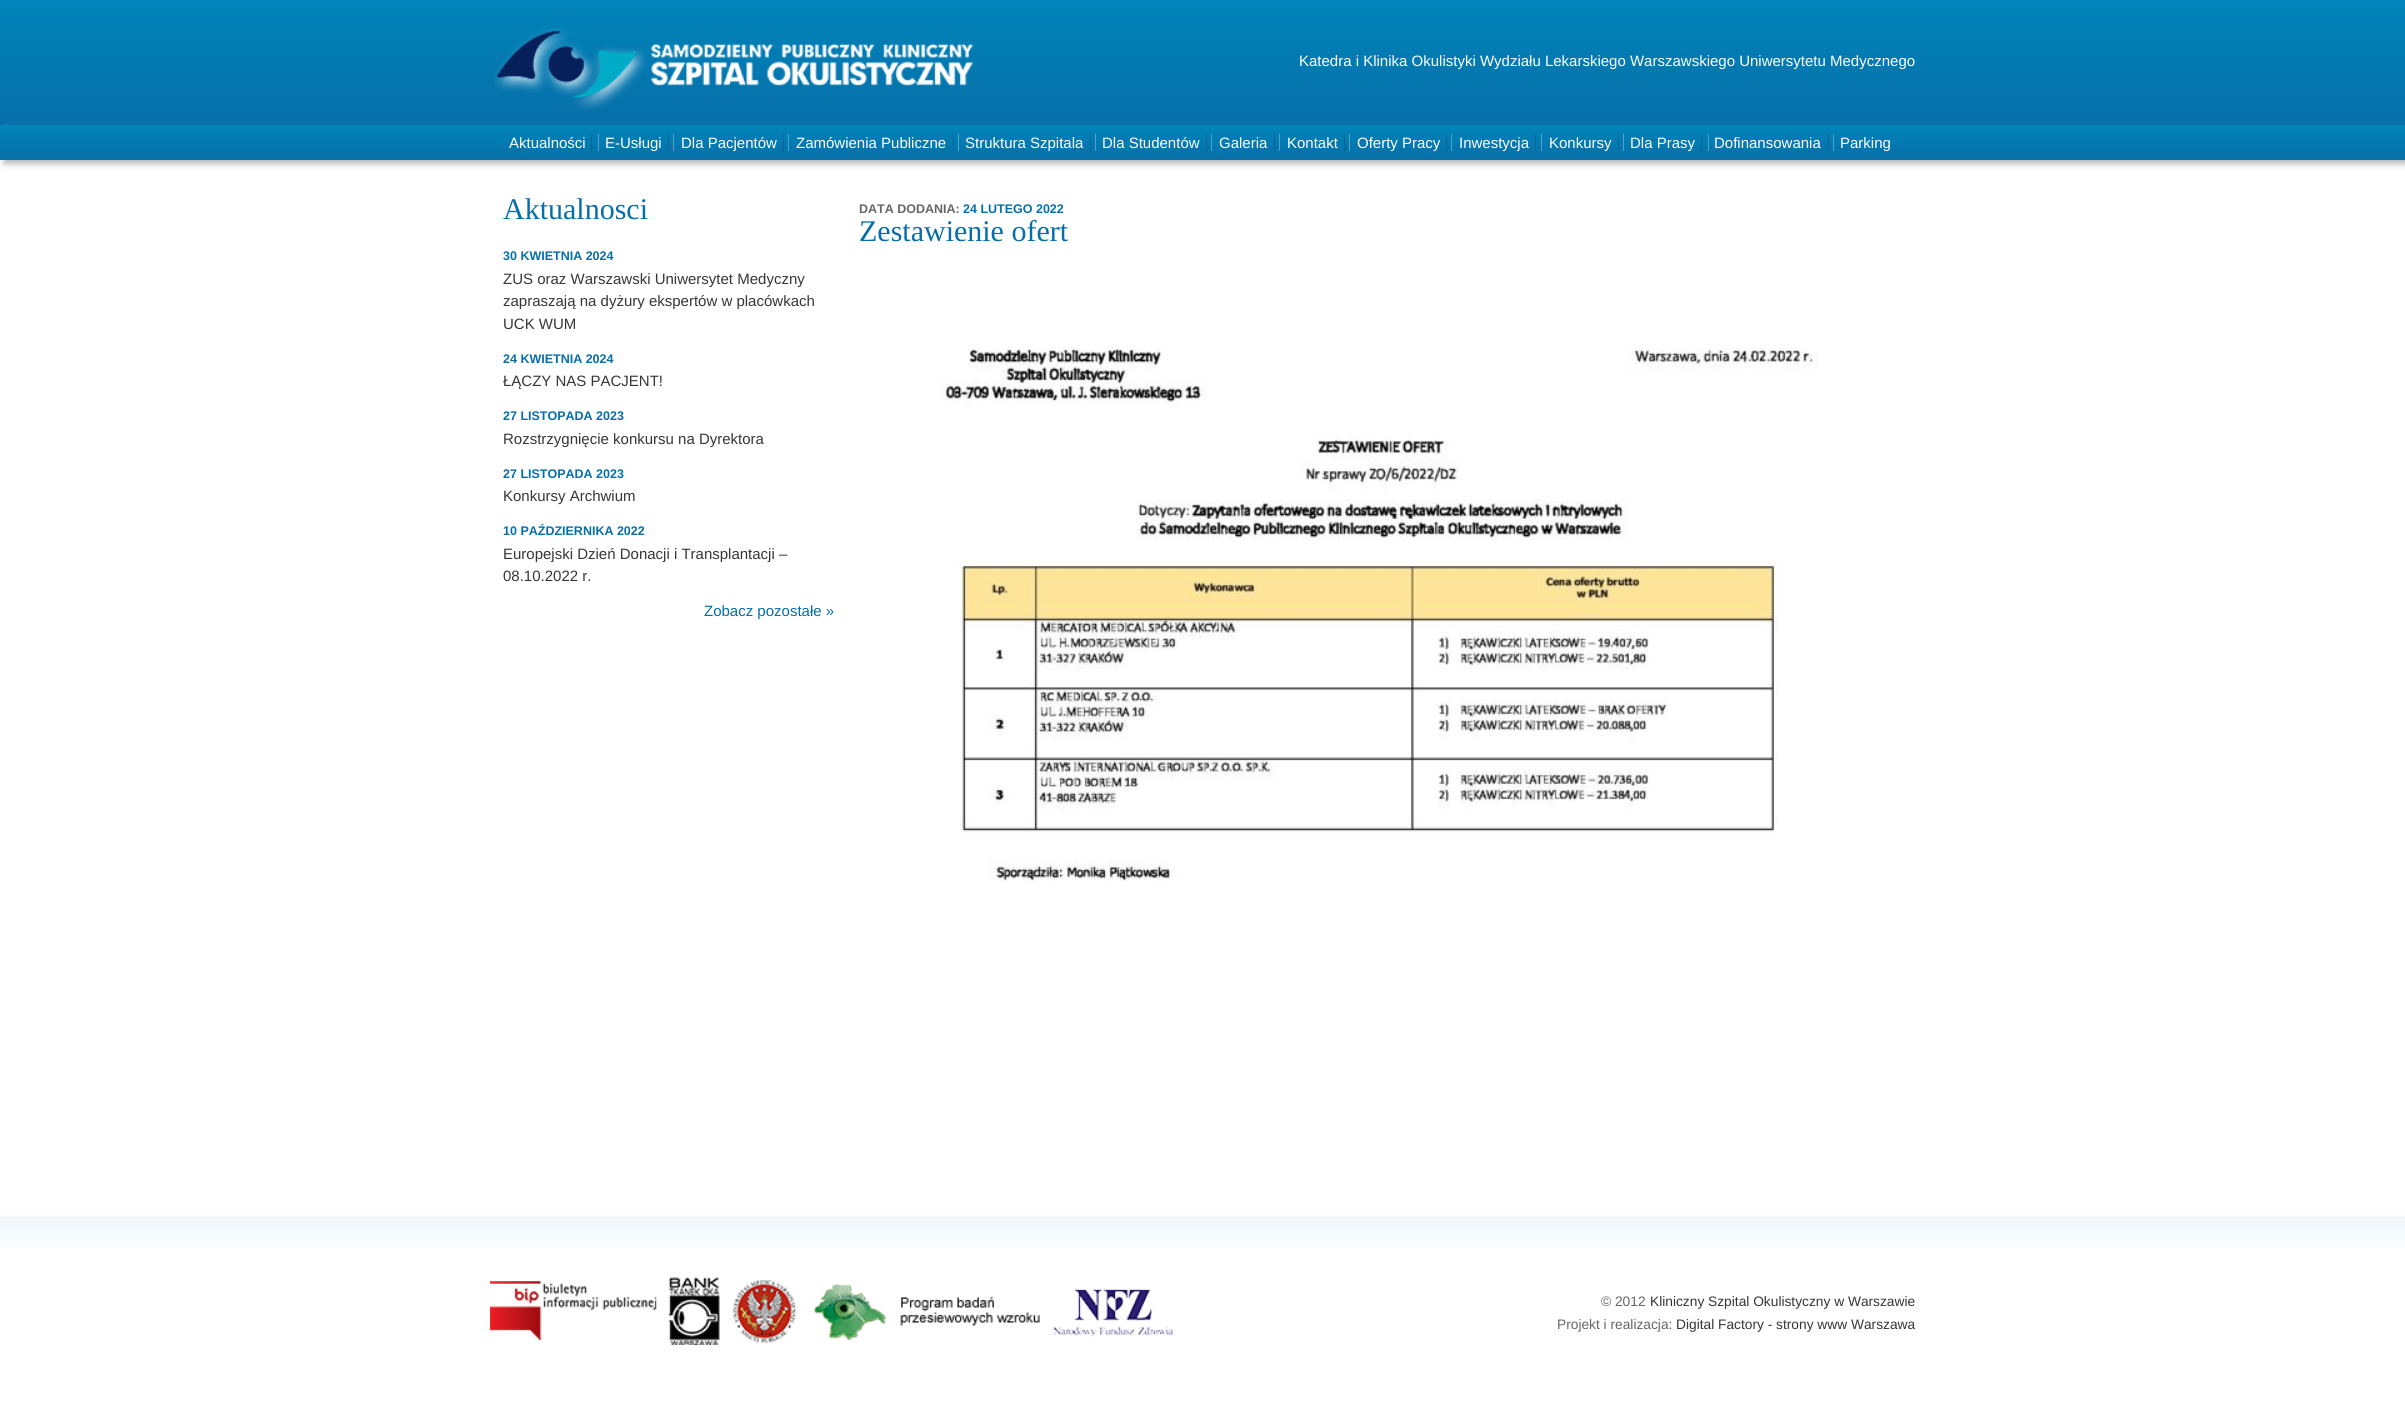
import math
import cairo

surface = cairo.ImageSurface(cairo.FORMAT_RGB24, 2405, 1402)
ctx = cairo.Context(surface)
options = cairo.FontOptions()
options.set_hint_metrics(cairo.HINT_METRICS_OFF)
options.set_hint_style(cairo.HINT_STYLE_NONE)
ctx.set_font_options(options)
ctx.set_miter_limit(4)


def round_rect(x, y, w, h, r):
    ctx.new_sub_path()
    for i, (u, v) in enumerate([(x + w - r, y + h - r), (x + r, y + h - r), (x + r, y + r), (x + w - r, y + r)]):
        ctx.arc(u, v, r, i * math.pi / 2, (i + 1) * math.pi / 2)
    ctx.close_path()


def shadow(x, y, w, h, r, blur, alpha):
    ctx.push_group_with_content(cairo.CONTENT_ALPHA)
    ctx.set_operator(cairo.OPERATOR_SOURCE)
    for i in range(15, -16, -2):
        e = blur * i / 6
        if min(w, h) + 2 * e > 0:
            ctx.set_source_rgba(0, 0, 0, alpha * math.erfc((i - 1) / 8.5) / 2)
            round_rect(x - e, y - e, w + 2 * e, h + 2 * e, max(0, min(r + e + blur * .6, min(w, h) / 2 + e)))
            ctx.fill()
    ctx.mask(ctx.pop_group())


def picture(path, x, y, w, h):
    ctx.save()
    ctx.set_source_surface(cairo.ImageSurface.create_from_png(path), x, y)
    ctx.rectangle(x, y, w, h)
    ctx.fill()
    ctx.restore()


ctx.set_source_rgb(1, 1, 1)
ctx.paint()
gradient = cairo.LinearGradient(0, 0, 0, 125)
gradient.add_color_stop_rgba(0, 0, 0.522, 0.729, 1)
gradient.add_color_stop_rgba(1, 0.027, 0.431, 0.659, 1)
ctx.set_source(gradient)
ctx.rectangle(0, 0, 2405, 125)
ctx.fill()
picture("img1.png", 494, 28, 479, 83)
ctx.select_font_face("Liberation Sans")
ctx.set_font_size(15)
ctx.set_source_rgb(1, 1, 1)
ctx.move_to(1299, 66)
ctx.show_text("Katedra i Klinika Okulistyki Wydziału Lekarskiego Warszawskiego Uniwersytetu Medycznego")
ctx.set_source_rgb(0.733, 0.733, 0.733)
shadow(4, 129, 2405, 35, 0, 3, 1)
gradient = cairo.LinearGradient(0, 125, 0, 160)
gradient.add_color_stop_rgba(0, 0, 0.522, 0.729, 1)
gradient.add_color_stop_rgba(1, 0.027, 0.431, 0.659, 1)
ctx.set_source(gradient)
ctx.rectangle(0, 125, 2405, 35)
ctx.fill()
ctx.set_source_rgb(1, 1, 1)
ctx.move_to(509, 148)
ctx.show_text("Aktualności")
ctx.set_source_rgb(0.008, 0.392, 0.565)
ctx.rectangle(591, 134, 1, 17)
ctx.fill()
ctx.set_source_rgb(1, 1, 1)
ctx.move_to(605, 148)
ctx.show_text("E-Usługi")
ctx.set_source_rgb(0.008, 0.392, 0.565)
ctx.rectangle(668, 134, 1, 17)
ctx.fill()
ctx.set_source_rgb(0.31, 0.635, 0.788)
ctx.rectangle(598, 134, 1, 17)
ctx.fill()
ctx.set_source_rgb(1, 1, 1)
ctx.move_to(681, 148)
ctx.show_text("Dla Pacjentów")
ctx.set_source_rgb(0.008, 0.392, 0.565)
ctx.rectangle(783, 134, 1, 17)
ctx.fill()
ctx.set_source_rgb(0.31, 0.635, 0.788)
ctx.rectangle(673, 134, 1, 17)
ctx.fill()
ctx.set_source_rgb(1, 1, 1)
ctx.move_to(796, 148)
ctx.show_text("Zamówienia Publiczne")
ctx.set_source_rgb(0.008, 0.392, 0.565)
ctx.rectangle(953, 134, 1, 17)
ctx.fill()
ctx.set_source_rgb(0.31, 0.635, 0.788)
ctx.rectangle(788, 134, 1, 17)
ctx.fill()
ctx.set_source_rgb(1, 1, 1)
ctx.move_to(965, 148)
ctx.show_text("Struktura Szpitala")
ctx.set_source_rgb(0.008, 0.392, 0.565)
ctx.rectangle(1090, 134, 1, 17)
ctx.fill()
ctx.set_source_rgb(0.31, 0.635, 0.788)
ctx.rectangle(958, 134, 1, 17)
ctx.fill()
ctx.set_source_rgb(1, 1, 1)
ctx.move_to(1102, 148)
ctx.show_text("Dla Studentów")
ctx.set_source_rgb(0.008, 0.392, 0.565)
ctx.rectangle(1206, 134, 1, 17)
ctx.fill()
ctx.set_source_rgb(0.31, 0.635, 0.788)
ctx.rectangle(1095, 134, 1, 17)
ctx.fill()
ctx.set_source_rgb(1, 1, 1)
ctx.move_to(1219, 148)
ctx.show_text("Galeria")
ctx.set_source_rgb(0.008, 0.392, 0.565)
ctx.rectangle(1274, 134, 1, 17)
ctx.fill()
ctx.set_source_rgb(0.31, 0.635, 0.788)
ctx.rectangle(1211, 134, 1, 17)
ctx.fill()
ctx.set_source_rgb(1, 1, 1)
ctx.move_to(1287, 148)
ctx.show_text("Kontakt")
ctx.set_source_rgb(0.008, 0.392, 0.565)
ctx.rectangle(1344, 134, 1, 17)
ctx.fill()
ctx.set_source_rgb(0.31, 0.635, 0.788)
ctx.rectangle(1279, 134, 1, 17)
ctx.fill()
ctx.set_source_rgb(1, 1, 1)
ctx.move_to(1357, 148)
ctx.show_text("Oferty Pracy")
ctx.set_source_rgb(0.008, 0.392, 0.565)
ctx.rectangle(1446, 134, 1, 17)
ctx.fill()
ctx.set_source_rgb(0.31, 0.635, 0.788)
ctx.rectangle(1349, 134, 1, 17)
ctx.fill()
ctx.set_source_rgb(1, 1, 1)
ctx.move_to(1459, 148)
ctx.show_text("Inwestycja")
ctx.set_source_rgb(0.008, 0.392, 0.565)
ctx.rectangle(1535, 134, 1, 17)
ctx.fill()
ctx.set_source_rgb(0.31, 0.635, 0.788)
ctx.rectangle(1451, 134, 1, 17)
ctx.fill()
ctx.set_source_rgb(1, 1, 1)
ctx.move_to(1549, 148)
ctx.show_text("Konkursy")
ctx.set_source_rgb(0.008, 0.392, 0.565)
ctx.rectangle(1618, 134, 1, 17)
ctx.fill()
ctx.set_source_rgb(0.31, 0.635, 0.788)
ctx.rectangle(1541, 134, 1, 17)
ctx.fill()
ctx.set_source_rgb(1, 1, 1)
ctx.move_to(1630, 148)
ctx.show_text("Dla Prasy")
ctx.set_source_rgb(0.008, 0.392, 0.565)
ctx.rectangle(1701, 134, 1, 17)
ctx.fill()
ctx.set_source_rgb(0.31, 0.635, 0.788)
ctx.rectangle(1623, 134, 1, 17)
ctx.fill()
ctx.set_source_rgb(1, 1, 1)
ctx.move_to(1714, 148)
ctx.show_text("Dofinansowania")
ctx.set_source_rgb(0.008, 0.392, 0.565)
ctx.rectangle(1828, 134, 1, 17)
ctx.fill()
ctx.set_source_rgb(0.31, 0.635, 0.788)
ctx.rectangle(1708, 134, 1, 17)
ctx.fill()
ctx.set_source_rgb(1, 1, 1)
ctx.move_to(1840, 148)
ctx.show_text("Parking")
ctx.set_source_rgb(0.31, 0.635, 0.788)
ctx.rectangle(1833, 134, 1, 17)
ctx.fill()
ctx.select_font_face("Liberation Serif")
ctx.set_font_size(30)
ctx.set_source_rgb(0.027, 0.431, 0.659)
ctx.move_to(503, 219)
ctx.show_text("Aktualnosci")
ctx.select_font_face("Liberation Sans", cairo.FONT_SLANT_NORMAL, cairo.FONT_WEIGHT_BOLD)
ctx.set_font_size(12.5)
ctx.move_to(503, 260)
ctx.show_text("30 KWIETNIA 2024")
ctx.select_font_face("Liberation Sans")
ctx.set_font_size(15)
ctx.set_source_rgb(0.212, 0.212, 0.212)
ctx.move_to(503, 284)
ctx.show_text("ZUS oraz Warszawski Uniwersytet Medyczny")
ctx.move_to(503, 306)
ctx.show_text("zapraszają na dyżury ekspertów w placówkach")
ctx.move_to(503, 329)
ctx.show_text("UCK WUM")
ctx.select_font_face("Liberation Sans", cairo.FONT_SLANT_NORMAL, cairo.FONT_WEIGHT_BOLD)
ctx.set_font_size(12.5)
ctx.set_source_rgb(0.027, 0.431, 0.659)
ctx.move_to(503, 363)
ctx.show_text("24 KWIETNIA 2024")
ctx.select_font_face("Liberation Sans")
ctx.set_font_size(15)
ctx.set_source_rgb(0.212, 0.212, 0.212)
ctx.move_to(503, 386)
ctx.show_text("ŁĄCZY NAS PACJENT!")
ctx.select_font_face("Liberation Sans", cairo.FONT_SLANT_NORMAL, cairo.FONT_WEIGHT_BOLD)
ctx.set_font_size(12.5)
ctx.set_source_rgb(0.027, 0.431, 0.659)
ctx.move_to(503, 420)
ctx.show_text("27 LISTOPADA 2023")
ctx.select_font_face("Liberation Sans")
ctx.set_font_size(15)
ctx.set_source_rgb(0.212, 0.212, 0.212)
ctx.move_to(503, 444)
ctx.show_text("Rozstrzygnięcie konkursu na Dyrektora")
ctx.select_font_face("Liberation Sans", cairo.FONT_SLANT_NORMAL, cairo.FONT_WEIGHT_BOLD)
ctx.set_font_size(12.5)
ctx.set_source_rgb(0.027, 0.431, 0.659)
ctx.move_to(503, 478)
ctx.show_text("27 LISTOPADA 2023")
ctx.select_font_face("Liberation Sans")
ctx.set_font_size(15)
ctx.set_source_rgb(0.212, 0.212, 0.212)
ctx.move_to(503, 501)
ctx.show_text("Konkursy Archwium")
ctx.select_font_face("Liberation Sans", cairo.FONT_SLANT_NORMAL, cairo.FONT_WEIGHT_BOLD)
ctx.set_font_size(12.5)
ctx.set_source_rgb(0.027, 0.431, 0.659)
ctx.move_to(503, 535)
ctx.show_text("10 PAŹDZIERNIKA 2022")
ctx.select_font_face("Liberation Sans")
ctx.set_font_size(15)
ctx.set_source_rgb(0.212, 0.212, 0.212)
ctx.move_to(503, 559)
ctx.show_text("Europejski Dzień Donacji i Transplantacji –")
ctx.move_to(503, 581)
ctx.show_text("08.10.2022 r.")
ctx.set_source_rgb(0.027, 0.431, 0.659)
ctx.move_to(704, 616)
ctx.show_text("Zobacz pozostałe »")
ctx.select_font_face("Liberation Sans", cairo.FONT_SLANT_NORMAL, cairo.FONT_WEIGHT_BOLD)
ctx.set_font_size(12.5)
ctx.set_source_rgb(0.4, 0.4, 0.4)
ctx.move_to(859, 213)
ctx.show_text("DATA DODANIA:")
ctx.set_source_rgb(0.027, 0.431, 0.659)
ctx.move_to(963, 213)
ctx.show_text("24 LUTEGO 2022")
ctx.select_font_face("Liberation Serif")
ctx.set_font_size(30)
ctx.move_to(859, 241)
ctx.show_text("Zestawienie ofert")
picture("img2.png", 939, 346, 879, 535)
picture("img3.png", 0, 1215, 2405, 34)
picture("img4.png", 490, 1281, 167, 59)
picture("img5.png", 668, 1277, 52, 68)
picture("img6.png", 732, 1280, 65, 64)
picture("img7.png", 813, 1283, 227, 57)
picture("img8.png", 1053, 1288, 120, 49)
ctx.select_font_face("Liberation Sans")
ctx.set_font_size(13.75)
ctx.set_source_rgb(0.4, 0.4, 0.4)
ctx.move_to(1601, 1306)
ctx.show_text("© 2012")
ctx.set_source_rgb(0.212, 0.212, 0.212)
ctx.move_to(1650, 1306)
ctx.show_text("Kliniczny Szpital Okulistyczny w Warszawie")
ctx.set_source_rgb(0.4, 0.4, 0.4)
ctx.move_to(1557, 1329)
ctx.show_text("Projekt i realizacja:")
ctx.set_source_rgb(0.212, 0.212, 0.212)
ctx.move_to(1676, 1329)
ctx.show_text("Digital Factory - strony www Warszawa")
surface.write_to_png("page.png")
